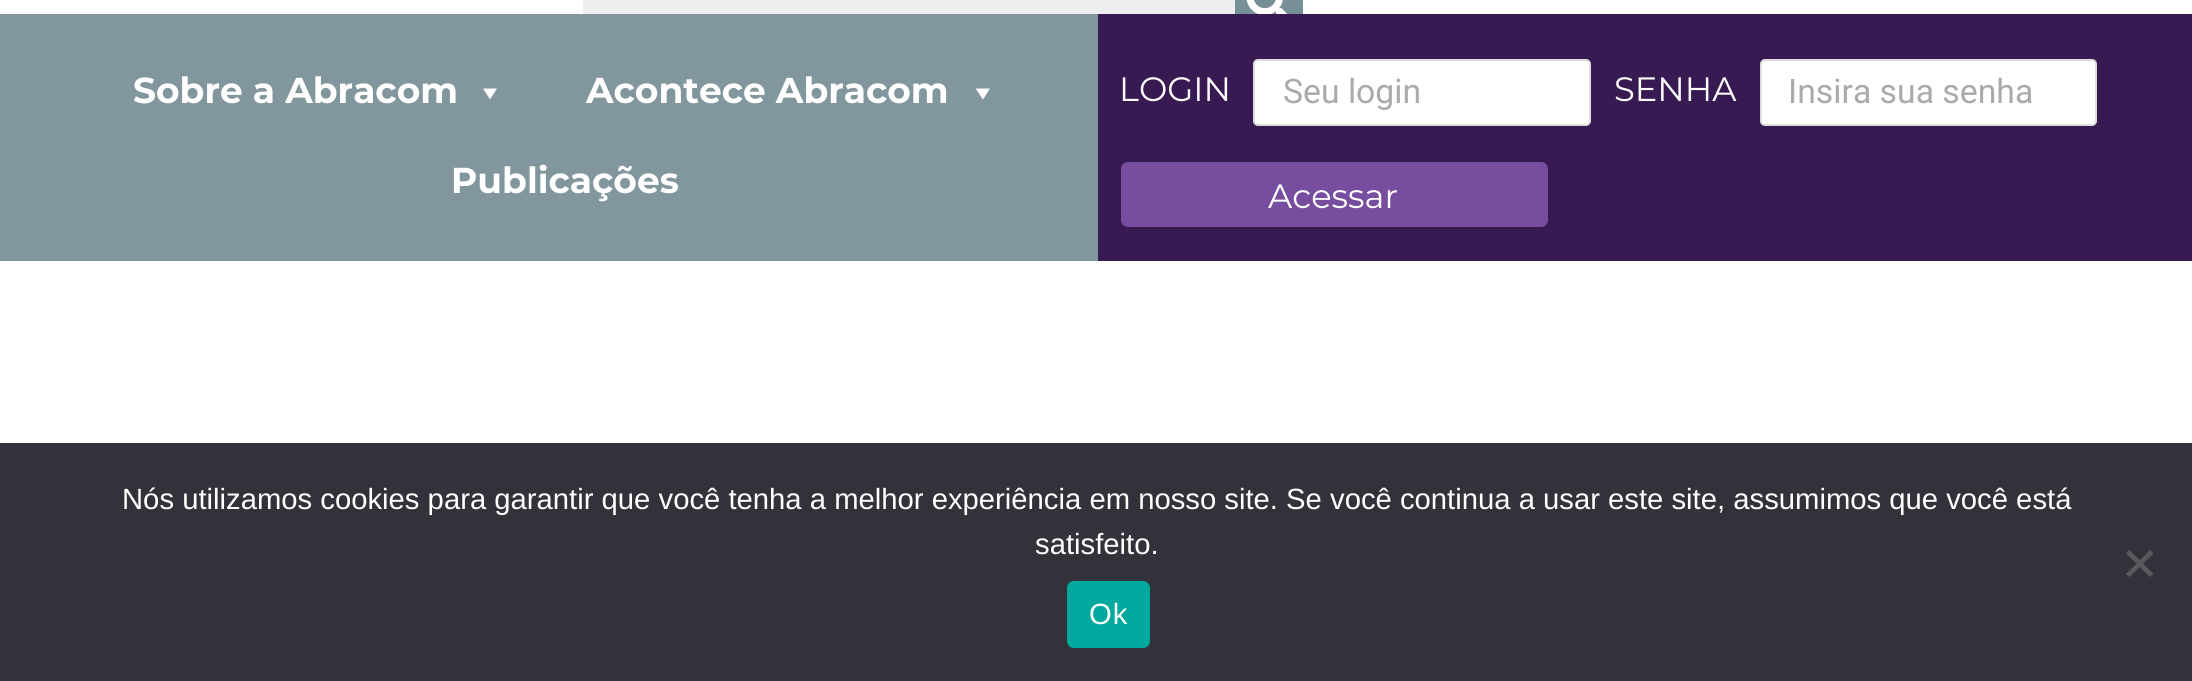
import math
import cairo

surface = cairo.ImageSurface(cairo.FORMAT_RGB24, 2192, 681)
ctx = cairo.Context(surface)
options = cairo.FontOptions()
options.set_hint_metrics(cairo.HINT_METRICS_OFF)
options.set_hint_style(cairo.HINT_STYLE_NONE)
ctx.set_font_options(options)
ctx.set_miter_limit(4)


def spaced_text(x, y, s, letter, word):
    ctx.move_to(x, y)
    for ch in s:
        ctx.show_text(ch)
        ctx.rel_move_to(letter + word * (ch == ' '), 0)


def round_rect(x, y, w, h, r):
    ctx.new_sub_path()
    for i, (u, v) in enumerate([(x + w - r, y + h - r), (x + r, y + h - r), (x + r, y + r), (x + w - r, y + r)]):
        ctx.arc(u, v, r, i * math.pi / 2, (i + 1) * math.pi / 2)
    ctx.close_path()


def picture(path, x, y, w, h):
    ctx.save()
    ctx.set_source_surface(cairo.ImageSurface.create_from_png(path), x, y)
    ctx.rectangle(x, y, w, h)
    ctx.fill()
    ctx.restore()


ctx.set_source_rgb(1, 1, 1)
ctx.paint()
ctx.set_source_rgb(0.925, 0.933, 0.937)
ctx.rectangle(583, 0, 652, 14)
ctx.fill()
ctx.set_source_rgb(0.467, 0.565, 0.592)
ctx.rectangle(1235, 0, 68, 14)
ctx.fill()
picture("img1.png", 1246, 0, 42, 14)
ctx.set_source_rgb(0.506, 0.588, 0.616)
ctx.rectangle(0, 14, 1098, 247)
ctx.fill()
ctx.select_font_face("Montserrat", cairo.FONT_SLANT_NORMAL, cairo.FONT_WEIGHT_BOLD)
ctx.set_font_size(36)
ctx.set_source_rgb(1, 1, 1)
ctx.move_to(133, 103)
ctx.show_text("Sobre a Abracom")
ctx.new_path()
ctx.move_to(497, 88.5)
ctx.line_to(490, 99.5)
ctx.line_to(483, 88.5)
ctx.close_path()
ctx.fill()
ctx.move_to(586, 103)
ctx.show_text("Acontece Abracom")
ctx.new_path()
ctx.move_to(990, 88.5)
ctx.line_to(983, 99.5)
ctx.line_to(975.5, 88.5)
ctx.close_path()
ctx.fill()
ctx.move_to(451, 193)
ctx.show_text("Publicações")
ctx.set_source_rgb(0.22, 0.102, 0.322)
ctx.rectangle(1098, 14, 1094, 247)
ctx.fill()
ctx.select_font_face("Montserrat")
ctx.set_font_size(33.75)
ctx.set_source_rgb(1, 1, 1)
ctx.move_to(1119, 101)
ctx.show_text("LOGIN")
round_rect(1254, 60, 336, 65, 4)
ctx.fill_preserve()
ctx.set_source_rgb(0.867, 0.867, 0.867)
ctx.stroke()
ctx.select_font_face("Roboto")
ctx.set_source_rgb(0.667, 0.667, 0.667)
ctx.move_to(1283, 103)
ctx.show_text("Seu login")
ctx.select_font_face("Montserrat")
ctx.set_source_rgb(1, 1, 1)
ctx.move_to(1614, 101)
ctx.show_text("SENHA")
round_rect(1761, 60, 335, 65, 4)
ctx.fill_preserve()
ctx.set_source_rgb(0.867, 0.867, 0.867)
ctx.stroke()
ctx.select_font_face("Roboto")
ctx.set_source_rgb(0.667, 0.667, 0.667)
ctx.move_to(1788, 103)
ctx.show_text("Insira sua senha")
ctx.set_source_rgb(0.467, 0.302, 0.624)
round_rect(1121, 162, 427, 65, 7)
ctx.fill()
ctx.select_font_face("Montserrat")
ctx.set_source_rgb(1, 1, 1)
ctx.move_to(1268, 208)
ctx.show_text("Acessar")
ctx.set_source_rgb(0.196, 0.196, 0.227)
ctx.rectangle(0, 443, 2192, 238)
ctx.fill()
ctx.select_font_face("Liberation Sans")
ctx.set_font_size(29.25)
ctx.set_source_rgb(1, 1, 1)
ctx.move_to(122, 509)
ctx.show_text("Nós utilizamos cookies para garantir que você tenha a melhor experiência em nosso site. Se você continua a usar este site, assumimos que você está")
ctx.move_to(1035, 554)
ctx.show_text("satisfeito.")
ctx.set_source_rgb(0.349, 0.349, 0.365)
ctx.new_path()
ctx.move_to(2150, 550)
ctx.line_to(2153.5, 553.5)
ctx.line_to(2129.5, 577)
ctx.line_to(2126, 574)
ctx.close_path()
ctx.fill()
ctx.new_path()
ctx.move_to(2126, 553.5)
ctx.line_to(2129.5, 550)
ctx.line_to(2153.5, 574)
ctx.line_to(2150, 577)
ctx.close_path()
ctx.fill()
ctx.set_source_rgb(0, 0.663, 0.616)
round_rect(1067, 581, 83, 67, 7)
ctx.fill()
ctx.set_source_rgb(1, 1, 1)
spaced_text(1089, 624, "Ok", 1, 0)
surface.write_to_png("page.png")
